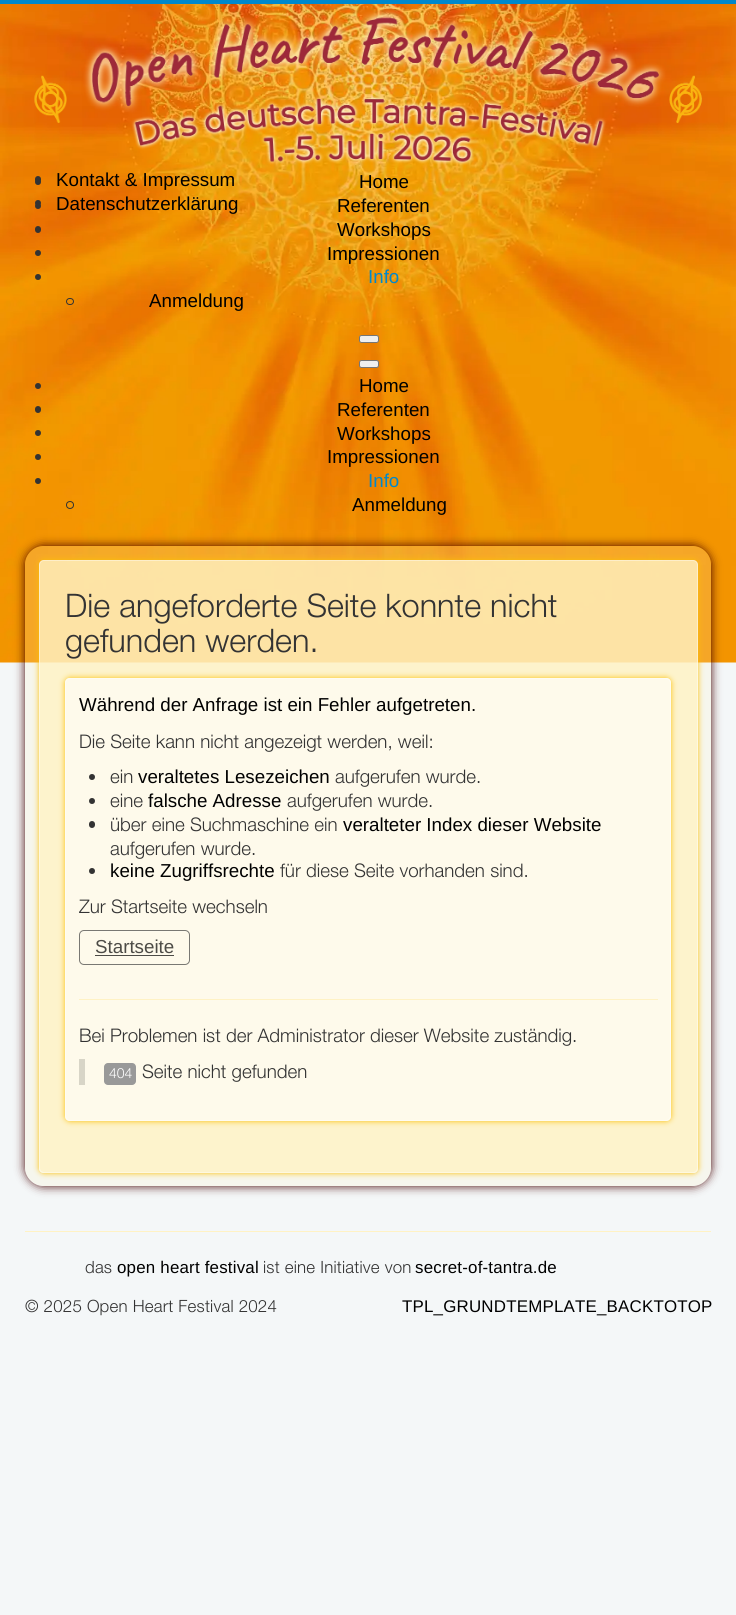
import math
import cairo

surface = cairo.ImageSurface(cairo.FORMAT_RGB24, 736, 1615)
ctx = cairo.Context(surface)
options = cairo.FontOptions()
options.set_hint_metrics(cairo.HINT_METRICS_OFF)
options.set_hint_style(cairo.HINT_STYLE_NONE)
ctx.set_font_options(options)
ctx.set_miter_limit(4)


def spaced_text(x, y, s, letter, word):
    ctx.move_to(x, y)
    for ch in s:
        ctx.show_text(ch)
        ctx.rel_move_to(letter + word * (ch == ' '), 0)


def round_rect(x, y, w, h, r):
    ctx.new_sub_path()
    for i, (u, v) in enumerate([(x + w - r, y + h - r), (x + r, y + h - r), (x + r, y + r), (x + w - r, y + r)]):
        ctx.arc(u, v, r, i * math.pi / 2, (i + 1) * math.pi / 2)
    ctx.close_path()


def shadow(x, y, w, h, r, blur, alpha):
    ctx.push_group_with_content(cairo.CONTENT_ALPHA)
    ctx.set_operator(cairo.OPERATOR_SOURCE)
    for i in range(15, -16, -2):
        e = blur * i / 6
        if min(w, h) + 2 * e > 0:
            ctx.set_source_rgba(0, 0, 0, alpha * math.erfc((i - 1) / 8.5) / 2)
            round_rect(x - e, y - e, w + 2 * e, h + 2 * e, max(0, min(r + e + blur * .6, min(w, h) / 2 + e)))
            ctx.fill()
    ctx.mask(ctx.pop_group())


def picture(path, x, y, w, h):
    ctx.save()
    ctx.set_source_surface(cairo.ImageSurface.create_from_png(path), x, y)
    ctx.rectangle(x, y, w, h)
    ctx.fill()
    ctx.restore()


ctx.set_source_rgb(0.957, 0.965, 0.969)
ctx.paint()
picture("img1.png", 0, 4, 736, 659)
ctx.set_source_rgb(0, 0.533, 0.8)
ctx.rectangle(0, 0, 736, 4)
ctx.fill()
picture("img2.png", 34, 10, 668, 156)
ctx.set_source_rgb(0.2, 0.2, 0.2)
round_rect(35, 176, 6, 7, 3)
ctx.fill()
ctx.select_font_face("Liberation Sans")
ctx.set_font_size(18.75)
ctx.set_source_rgb(0, 0, 0)
ctx.move_to(56, 186)
ctx.show_text("Kontakt & Impressum")
ctx.set_source_rgb(0.2, 0.2, 0.2)
ctx.new_path()
ctx.arc(38, 203, 3, 0, 2 * math.pi)
ctx.fill()
ctx.set_source_rgb(0, 0, 0)
ctx.move_to(56, 210)
ctx.show_text("Datenschutzerklärung")
ctx.set_source_rgb(0.2, 0.2, 0.2)
ctx.new_path()
ctx.arc(38, 182, 3, 0, 2 * math.pi)
ctx.fill()
ctx.set_source_rgb(0, 0, 0)
ctx.move_to(359, 188)
ctx.show_text("Home")
ctx.set_source_rgb(0.2, 0.2, 0.2)
ctx.new_path()
ctx.arc(38, 206, 3, 0, 2 * math.pi)
ctx.fill()
ctx.set_source_rgb(0, 0, 0)
ctx.move_to(337, 212)
ctx.show_text("Referenten")
ctx.set_source_rgb(0.2, 0.2, 0.2)
round_rect(35, 226, 6, 7, 3)
ctx.fill()
ctx.set_source_rgb(0, 0, 0)
ctx.move_to(337, 236)
ctx.show_text("Workshops")
ctx.set_source_rgb(0.2, 0.2, 0.2)
ctx.new_path()
ctx.arc(38, 253, 3, 0, 2 * math.pi)
ctx.fill()
ctx.set_source_rgb(0, 0, 0)
ctx.move_to(327, 260)
ctx.show_text("Impressionen")
ctx.set_source_rgb(0.2, 0.2, 0.2)
ctx.new_path()
ctx.arc(38, 277, 3, 0, 2 * math.pi)
ctx.fill()
ctx.set_source_rgb(0, 0.533, 0.8)
ctx.move_to(368, 283)
ctx.show_text("Info")
round_rect(66.5, 298.5, 7, 6, 3)
ctx.set_source_rgb(0.2, 0.2, 0.2)
ctx.set_line_width(1)
ctx.stroke()
ctx.set_source_rgb(0, 0, 0)
ctx.move_to(149, 307)
ctx.show_text("Anmeldung")
ctx.set_source_rgb(0.937, 0.937, 0.937)
round_rect(359.5, 335.5, 19, 7, 2)
ctx.fill_preserve()
ctx.set_source_rgb(0.463, 0.463, 0.463)
ctx.stroke()
ctx.set_source_rgb(0.937, 0.937, 0.937)
round_rect(359.5, 360.5, 19, 7, 2)
ctx.fill_preserve()
ctx.set_source_rgb(0.463, 0.463, 0.463)
ctx.stroke()
ctx.set_source_rgb(0.2, 0.2, 0.2)
ctx.arc(38, 386, 3, 0, 2 * math.pi)
ctx.fill()
ctx.set_source_rgb(0, 0, 0)
ctx.move_to(359, 392)
ctx.show_text("Home")
ctx.set_source_rgb(0.2, 0.2, 0.2)
round_rect(35, 406, 6, 7, 3)
ctx.fill()
ctx.set_source_rgb(0, 0, 0)
ctx.move_to(337, 416)
ctx.show_text("Referenten")
ctx.set_source_rgb(0.2, 0.2, 0.2)
ctx.new_path()
ctx.arc(38, 433, 3, 0, 2 * math.pi)
ctx.fill()
ctx.set_source_rgb(0, 0, 0)
ctx.move_to(337, 440)
ctx.show_text("Workshops")
ctx.set_source_rgb(0.2, 0.2, 0.2)
ctx.new_path()
ctx.arc(38, 457, 3, 0, 2 * math.pi)
ctx.fill()
ctx.set_source_rgb(0, 0, 0)
ctx.move_to(327, 463)
ctx.show_text("Impressionen")
ctx.set_source_rgb(0.2, 0.2, 0.2)
ctx.new_path()
ctx.arc(38, 481, 3, 0, 2 * math.pi)
ctx.fill()
ctx.set_source_rgb(0, 0.533, 0.8)
ctx.move_to(368, 487)
ctx.show_text("Info")
ctx.new_path()
ctx.arc(70, 505, 3.5, 0, 2 * math.pi)
ctx.set_source_rgb(0.2, 0.2, 0.2)
ctx.stroke()
ctx.set_source_rgb(0, 0, 0)
ctx.move_to(352, 511)
ctx.show_text("Anmeldung")
ctx.save()
ctx.set_fill_rule(cairo.FILL_RULE_EVEN_ODD)
ctx.new_path()
ctx.move_to(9, 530)
ctx.line_to(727, 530)
ctx.line_to(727, 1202)
ctx.line_to(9, 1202)
ctx.close_path()
ctx.move_to(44, 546)
ctx.line_to(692, 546)
ctx.curve_to(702.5, 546, 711, 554.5, 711, 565)
ctx.line_to(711, 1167)
ctx.curve_to(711, 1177.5, 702.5, 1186, 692, 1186)
ctx.line_to(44, 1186)
ctx.curve_to(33.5, 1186, 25, 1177.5, 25, 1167)
ctx.line_to(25, 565)
ctx.curve_to(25, 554.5, 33.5, 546, 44, 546)
ctx.close_path()
ctx.clip()
ctx.set_source_rgb(0.263, 0, 0)
shadow(25, 546, 686, 640, 19, 5, 1)
ctx.restore()
ctx.set_source_rgba(1, 0.949, 0.769, 0.2)
round_rect(25, 546, 686, 640, 19)
ctx.fill()
ctx.save()
ctx.set_fill_rule(cairo.FILL_RULE_EVEN_ODD)
ctx.new_path()
ctx.move_to(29, 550)
ctx.line_to(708, 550)
ctx.line_to(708, 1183)
ctx.line_to(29, 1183)
ctx.close_path()
ctx.move_to(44, 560)
ctx.line_to(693, 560)
ctx.curve_to(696, 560, 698, 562, 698, 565)
ctx.line_to(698, 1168)
ctx.curve_to(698, 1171, 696, 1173, 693, 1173)
ctx.line_to(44, 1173)
ctx.curve_to(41, 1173, 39, 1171, 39, 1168)
ctx.line_to(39, 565)
ctx.curve_to(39, 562, 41, 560, 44, 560)
ctx.close_path()
ctx.clip()
ctx.set_source_rgb(0.992, 0.753, 0.012)
shadow(39, 560, 659, 613, 5, 3, 1)
ctx.restore()
ctx.set_source_rgba(1, 0.949, 0.769, 0.8)
round_rect(39, 560, 659, 613, 5)
ctx.fill()
round_rect(39.5, 560.5, 658, 612, 4.5)
ctx.set_source_rgba(1, 1, 1, 0.4)
ctx.stroke()
ctx.select_font_face("Helvetica Neue Light")
ctx.set_font_size(32.5)
ctx.set_source_rgb(0.2, 0.2, 0.2)
ctx.move_to(65, 617)
ctx.show_text("Die angeforderte Seite konnte nicht")
ctx.move_to(65, 652)
ctx.show_text("gefunden werden.")
ctx.save()
ctx.set_fill_rule(cairo.FILL_RULE_EVEN_ODD)
ctx.new_path()
ctx.move_to(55, 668)
ctx.line_to(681, 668)
ctx.line_to(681, 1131)
ctx.line_to(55, 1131)
ctx.close_path()
ctx.move_to(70, 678)
ctx.line_to(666, 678)
ctx.curve_to(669, 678, 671, 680, 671, 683)
ctx.line_to(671, 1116)
ctx.curve_to(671, 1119, 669, 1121, 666, 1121)
ctx.line_to(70, 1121)
ctx.curve_to(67, 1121, 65, 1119, 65, 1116)
ctx.line_to(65, 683)
ctx.curve_to(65, 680, 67, 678, 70, 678)
ctx.close_path()
ctx.clip()
ctx.set_source_rgb(0.992, 0.753, 0.012)
shadow(65, 678, 606, 443, 5, 3, 1)
ctx.restore()
ctx.set_source_rgba(1, 1, 1, 0.6)
round_rect(65, 678, 606, 443, 5)
ctx.fill()
round_rect(65.5, 678.5, 605, 442, 4.5)
ctx.set_source_rgba(1, 1, 1, 0.4)
ctx.stroke()
ctx.select_font_face("Liberation Sans")
ctx.set_font_size(18.75)
ctx.set_source_rgb(0, 0, 0)
ctx.move_to(79, 711)
ctx.show_text("Während der Anfrage ist ein Fehler aufgetreten.")
ctx.select_font_face("Helvetica Neue Light")
ctx.set_source_rgb(0.2, 0.2, 0.2)
ctx.move_to(79, 748)
ctx.show_text("Die Seite kann nicht angezeigt werden, weil:")
ctx.new_path()
ctx.arc(92, 777, 3, 0, 2 * math.pi)
ctx.fill()
ctx.move_to(110, 783)
ctx.show_text("ein")
ctx.select_font_face("Liberation Sans")
ctx.set_source_rgb(0, 0, 0)
ctx.move_to(138, 783)
ctx.show_text("veraltetes Lesezeichen")
ctx.select_font_face("Helvetica Neue Light")
ctx.set_source_rgb(0.2, 0.2, 0.2)
ctx.move_to(335, 783)
ctx.show_text("aufgerufen wurde.")
ctx.new_path()
ctx.arc(92, 801, 3, 0, 2 * math.pi)
ctx.fill()
ctx.move_to(110, 807)
ctx.show_text("eine")
ctx.select_font_face("Liberation Sans")
ctx.set_source_rgb(0, 0, 0)
ctx.move_to(148, 807)
ctx.show_text("falsche Adresse")
ctx.select_font_face("Helvetica Neue Light")
ctx.set_source_rgb(0.2, 0.2, 0.2)
ctx.move_to(287, 807)
ctx.show_text("aufgerufen wurde.")
round_rect(89, 821, 6, 7, 3)
ctx.fill()
ctx.move_to(110, 831)
ctx.show_text("über eine Suchmaschine ein")
ctx.select_font_face("Liberation Sans")
ctx.set_source_rgb(0, 0, 0)
ctx.move_to(343, 831)
ctx.show_text("veralteter Index dieser Website")
ctx.select_font_face("Helvetica Neue Light")
ctx.set_source_rgb(0.2, 0.2, 0.2)
ctx.move_to(110, 855)
ctx.show_text("aufgerufen wurde.")
ctx.new_path()
ctx.arc(92, 871, 3, 0, 2 * math.pi)
ctx.fill()
ctx.select_font_face("Liberation Sans")
ctx.set_source_rgb(0, 0, 0)
ctx.move_to(110, 877)
ctx.show_text("keine Zugriffsrechte")
ctx.select_font_face("Helvetica Neue Light")
ctx.set_source_rgb(0.2, 0.2, 0.2)
ctx.move_to(280, 877)
ctx.show_text("für diese Seite vorhanden sind.")
ctx.move_to(79, 913)
ctx.show_text("Zur Startseite wechseln")
ctx.set_source_rgb(0.996, 0.984, 0.933)
ctx.new_path()
ctx.move_to(84, 932)
ctx.line_to(185, 932)
ctx.curve_to(187, 932, 189, 934, 189, 936)
ctx.curve_to(189, 927, 172, 931, 168, 931)
ctx.line_to(101, 931)
ctx.curve_to(97, 931, 80, 927, 80, 936)
ctx.curve_to(80, 934, 82, 932, 84, 932)
ctx.close_path()
ctx.fill()
round_rect(79.5, 930.5, 110, 34, 4.5)
ctx.set_source_rgb(0.475, 0.471, 0.451)
ctx.stroke()
ctx.select_font_face("Liberation Sans")
ctx.set_source_rgb(0.298, 0.294, 0.275)
ctx.move_to(95, 953)
ctx.show_text("Startseite")
ctx.rectangle(95, 955, 79, 1)
ctx.fill()
ctx.set_source_rgb(1, 0.949, 0.769)
ctx.rectangle(79, 999, 579, 1)
ctx.fill()
ctx.select_font_face("Helvetica Neue Light")
ctx.set_source_rgb(0.2, 0.2, 0.2)
ctx.move_to(79, 1042)
ctx.show_text("Bei Problemen ist der Administrator dieser Website zuständig.")
ctx.set_source_rgb(0.847, 0.835, 0.78)
ctx.rectangle(79, 1059, 6, 26)
ctx.fill()
ctx.set_source_rgb(0.6, 0.6, 0.6)
round_rect(104, 1063, 32, 22, 4)
ctx.fill()
ctx.set_font_size(14)
ctx.set_source_rgb(1, 1, 1)
ctx.move_to(109, 1078)
ctx.show_text("404")
ctx.set_font_size(18.75)
ctx.set_source_rgb(0.2, 0.2, 0.2)
ctx.move_to(142, 1078)
ctx.show_text("Seite nicht gefunden")
ctx.set_source_rgb(1, 0.949, 0.769)
ctx.rectangle(25, 1231, 686, 1)
ctx.fill()
ctx.set_font_size(16.9)
ctx.set_source_rgb(0.2, 0.2, 0.2)
spaced_text(85, 1273, "das", 0.2, 0)
ctx.select_font_face("Liberation Sans")
ctx.set_source_rgb(0, 0, 0)
spaced_text(117, 1273, "open heart festival", 0.2, 0)
ctx.select_font_face("Helvetica Neue Light")
ctx.set_source_rgb(0.2, 0.2, 0.2)
spaced_text(263, 1273, "ist eine Initiative von", 0.2, 0)
ctx.select_font_face("Liberation Sans")
ctx.set_source_rgb(0, 0, 0)
spaced_text(415, 1273, "secret-of-tantra.de", 0.2, 0)
ctx.select_font_face("Helvetica Neue Light")
ctx.set_source_rgb(0.2, 0.2, 0.2)
spaced_text(25, 1312, "© 2025 Open Heart Festival 2024", 0.2, 0)
ctx.select_font_face("Liberation Sans")
ctx.set_source_rgb(0, 0, 0)
spaced_text(402, 1312, "TPL_GRUNDTEMPLATE_BACKTOTOP", 0.2, 0)
surface.write_to_png("page.png")
